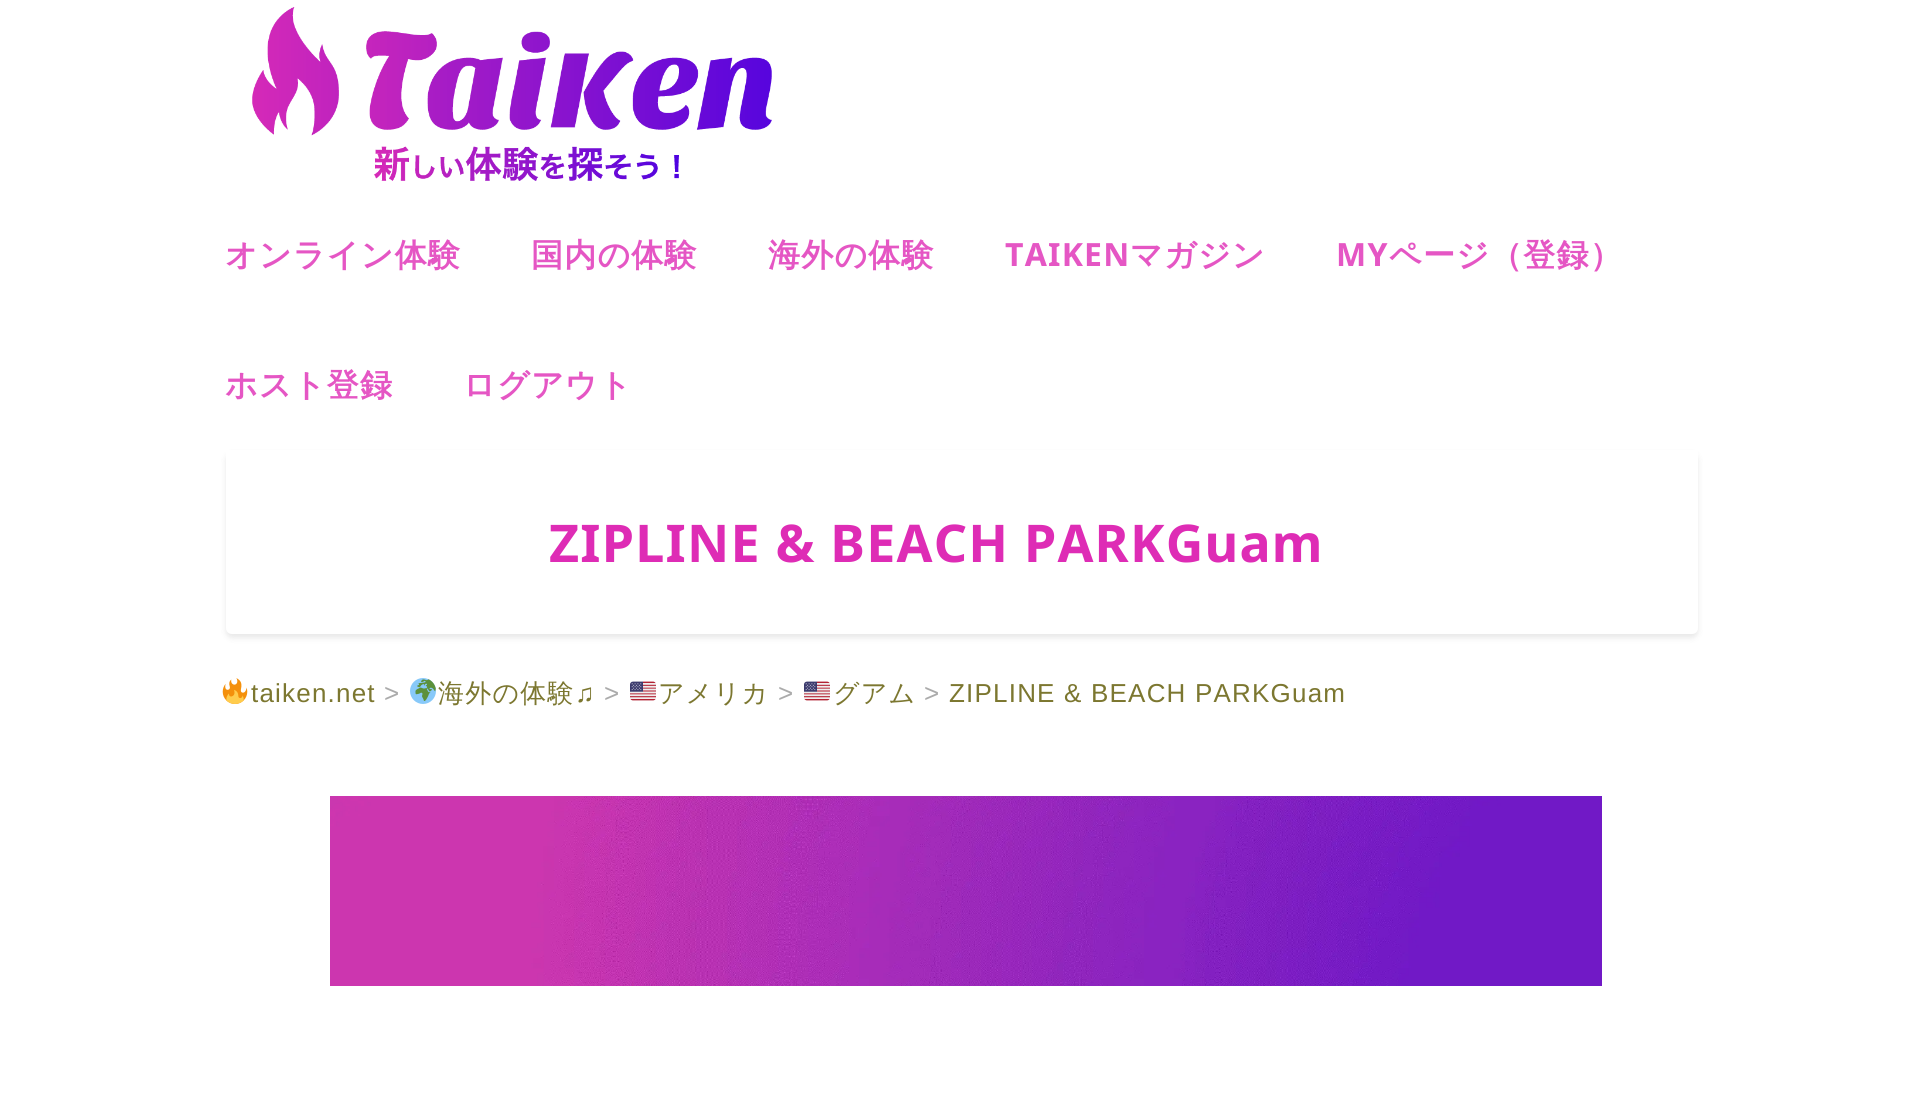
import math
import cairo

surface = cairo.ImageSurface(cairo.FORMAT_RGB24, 1914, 1094)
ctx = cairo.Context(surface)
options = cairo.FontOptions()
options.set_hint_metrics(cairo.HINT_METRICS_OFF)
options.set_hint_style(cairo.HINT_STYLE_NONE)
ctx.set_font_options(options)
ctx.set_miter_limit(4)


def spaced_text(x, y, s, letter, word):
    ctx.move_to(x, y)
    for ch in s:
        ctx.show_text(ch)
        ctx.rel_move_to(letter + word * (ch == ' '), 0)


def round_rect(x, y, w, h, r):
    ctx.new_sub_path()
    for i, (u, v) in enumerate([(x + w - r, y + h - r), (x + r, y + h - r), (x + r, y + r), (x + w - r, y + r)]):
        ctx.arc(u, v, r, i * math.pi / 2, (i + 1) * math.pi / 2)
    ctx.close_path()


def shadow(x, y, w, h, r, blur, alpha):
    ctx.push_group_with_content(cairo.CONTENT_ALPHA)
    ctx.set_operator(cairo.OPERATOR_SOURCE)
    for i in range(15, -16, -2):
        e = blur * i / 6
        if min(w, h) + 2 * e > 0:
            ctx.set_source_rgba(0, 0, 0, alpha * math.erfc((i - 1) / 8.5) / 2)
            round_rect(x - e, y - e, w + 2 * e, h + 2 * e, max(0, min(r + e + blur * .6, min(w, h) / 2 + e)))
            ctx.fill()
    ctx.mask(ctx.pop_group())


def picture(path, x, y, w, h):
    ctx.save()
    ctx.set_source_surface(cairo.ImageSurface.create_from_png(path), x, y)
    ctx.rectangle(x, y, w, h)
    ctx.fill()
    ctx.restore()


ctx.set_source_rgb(1, 1, 1)
ctx.paint()
picture("img1.png", 252, 7, 520, 174)
ctx.select_font_face("WenQuanYi Zen Hei", cairo.FONT_SLANT_NORMAL, cairo.FONT_WEIGHT_BOLD)
ctx.set_font_size(32)
ctx.set_source_rgb(0.898, 0.337, 0.769)
spaced_text(225, 266, "オンライン体験", 1.2, 0)
spaced_text(531, 266, "国内の体験", 1.2, 0)
spaced_text(768, 266, "海外の体験", 1.2, 0)
ctx.select_font_face("Noto Sans", cairo.FONT_SLANT_NORMAL, cairo.FONT_WEIGHT_BOLD)
spaced_text(1005, 266, "TAIKEN", 1.2, 0)
ctx.select_font_face("WenQuanYi Zen Hei", cairo.FONT_SLANT_NORMAL, cairo.FONT_WEIGHT_BOLD)
spaced_text(1130, 266, "マガジン", 1.2, 0)
ctx.select_font_face("Noto Sans", cairo.FONT_SLANT_NORMAL, cairo.FONT_WEIGHT_BOLD)
spaced_text(1336, 266, "MY", 1.2, 0)
ctx.select_font_face("WenQuanYi Zen Hei", cairo.FONT_SLANT_NORMAL, cairo.FONT_WEIGHT_BOLD)
spaced_text(1389, 266, "ページ（登録）", 1.2, 0)
spaced_text(225, 396, "ホスト登録", 1.2, 0)
spaced_text(463, 396, "ログアウト", 1.2, 0)
ctx.set_source_rgb(0, 0, 0)
shadow(226, 454, 1472, 184, 6, 3, 0.09)
ctx.set_source_rgb(1, 1, 1)
ctx.new_path()
ctx.move_to(226, 450)
ctx.line_to(1698, 450)
ctx.line_to(1698, 628)
ctx.curve_to(1698, 631.5, 1695.5, 634, 1692, 634)
ctx.line_to(232, 634)
ctx.curve_to(228.5, 634, 226, 631.5, 226, 628)
ctx.close_path()
ctx.fill()
ctx.select_font_face("Noto Sans", cairo.FONT_SLANT_NORMAL, cairo.FONT_WEIGHT_BOLD)
ctx.set_font_size(52)
ctx.set_source_rgb(0.871, 0.173, 0.71)
spaced_text(549, 562, "ZIPLINE & BEACH PARKGuam", 1.2, 0)
picture("img2.png", 222, 678, 26, 26)
ctx.select_font_face("Liberation Sans")
ctx.set_font_size(26)
ctx.set_source_rgb(0.486, 0.467, 0.188)
spaced_text(251, 702, "taiken.net", 1.2, 0)
ctx.set_source_rgb(0.671, 0.671, 0.671)
spaced_text(384, 702, ">", 1.2, 0)
picture("img3.png", 410, 678, 26, 26)
ctx.select_font_face("WenQuanYi Zen Hei Medium")
ctx.set_source_rgb(0.486, 0.467, 0.188)
spaced_text(438, 702, "海外の体験", 1.2, 0)
ctx.select_font_face("Liberation Sans")
spaced_text(575, 702, "♫", 1.2, 0)
ctx.set_source_rgb(0.671, 0.671, 0.671)
spaced_text(604, 702, ">", 1.2, 0)
picture("img4.png", 630, 681, 26, 20)
ctx.select_font_face("WenQuanYi Zen Hei Medium")
ctx.set_source_rgb(0.486, 0.467, 0.188)
spaced_text(658, 702, "アメリカ", 1.2, 0)
ctx.select_font_face("Liberation Sans")
ctx.set_source_rgb(0.671, 0.671, 0.671)
spaced_text(778, 702, ">", 1.2, 0)
picture("img4.png", 804, 681, 26, 20)
ctx.select_font_face("WenQuanYi Zen Hei Medium")
ctx.set_source_rgb(0.486, 0.467, 0.188)
spaced_text(833, 702, "グアム", 1.2, 0)
ctx.select_font_face("Liberation Sans")
ctx.set_source_rgb(0.671, 0.671, 0.671)
spaced_text(924, 702, ">", 1.2, 0)
ctx.set_source_rgb(0.486, 0.467, 0.188)
spaced_text(949, 702, "ZIPLINE & BEACH PARKGuam", 1.2, 0)
picture("img5.png", 330, 796, 1272, 190)
surface.write_to_png("page.png")
